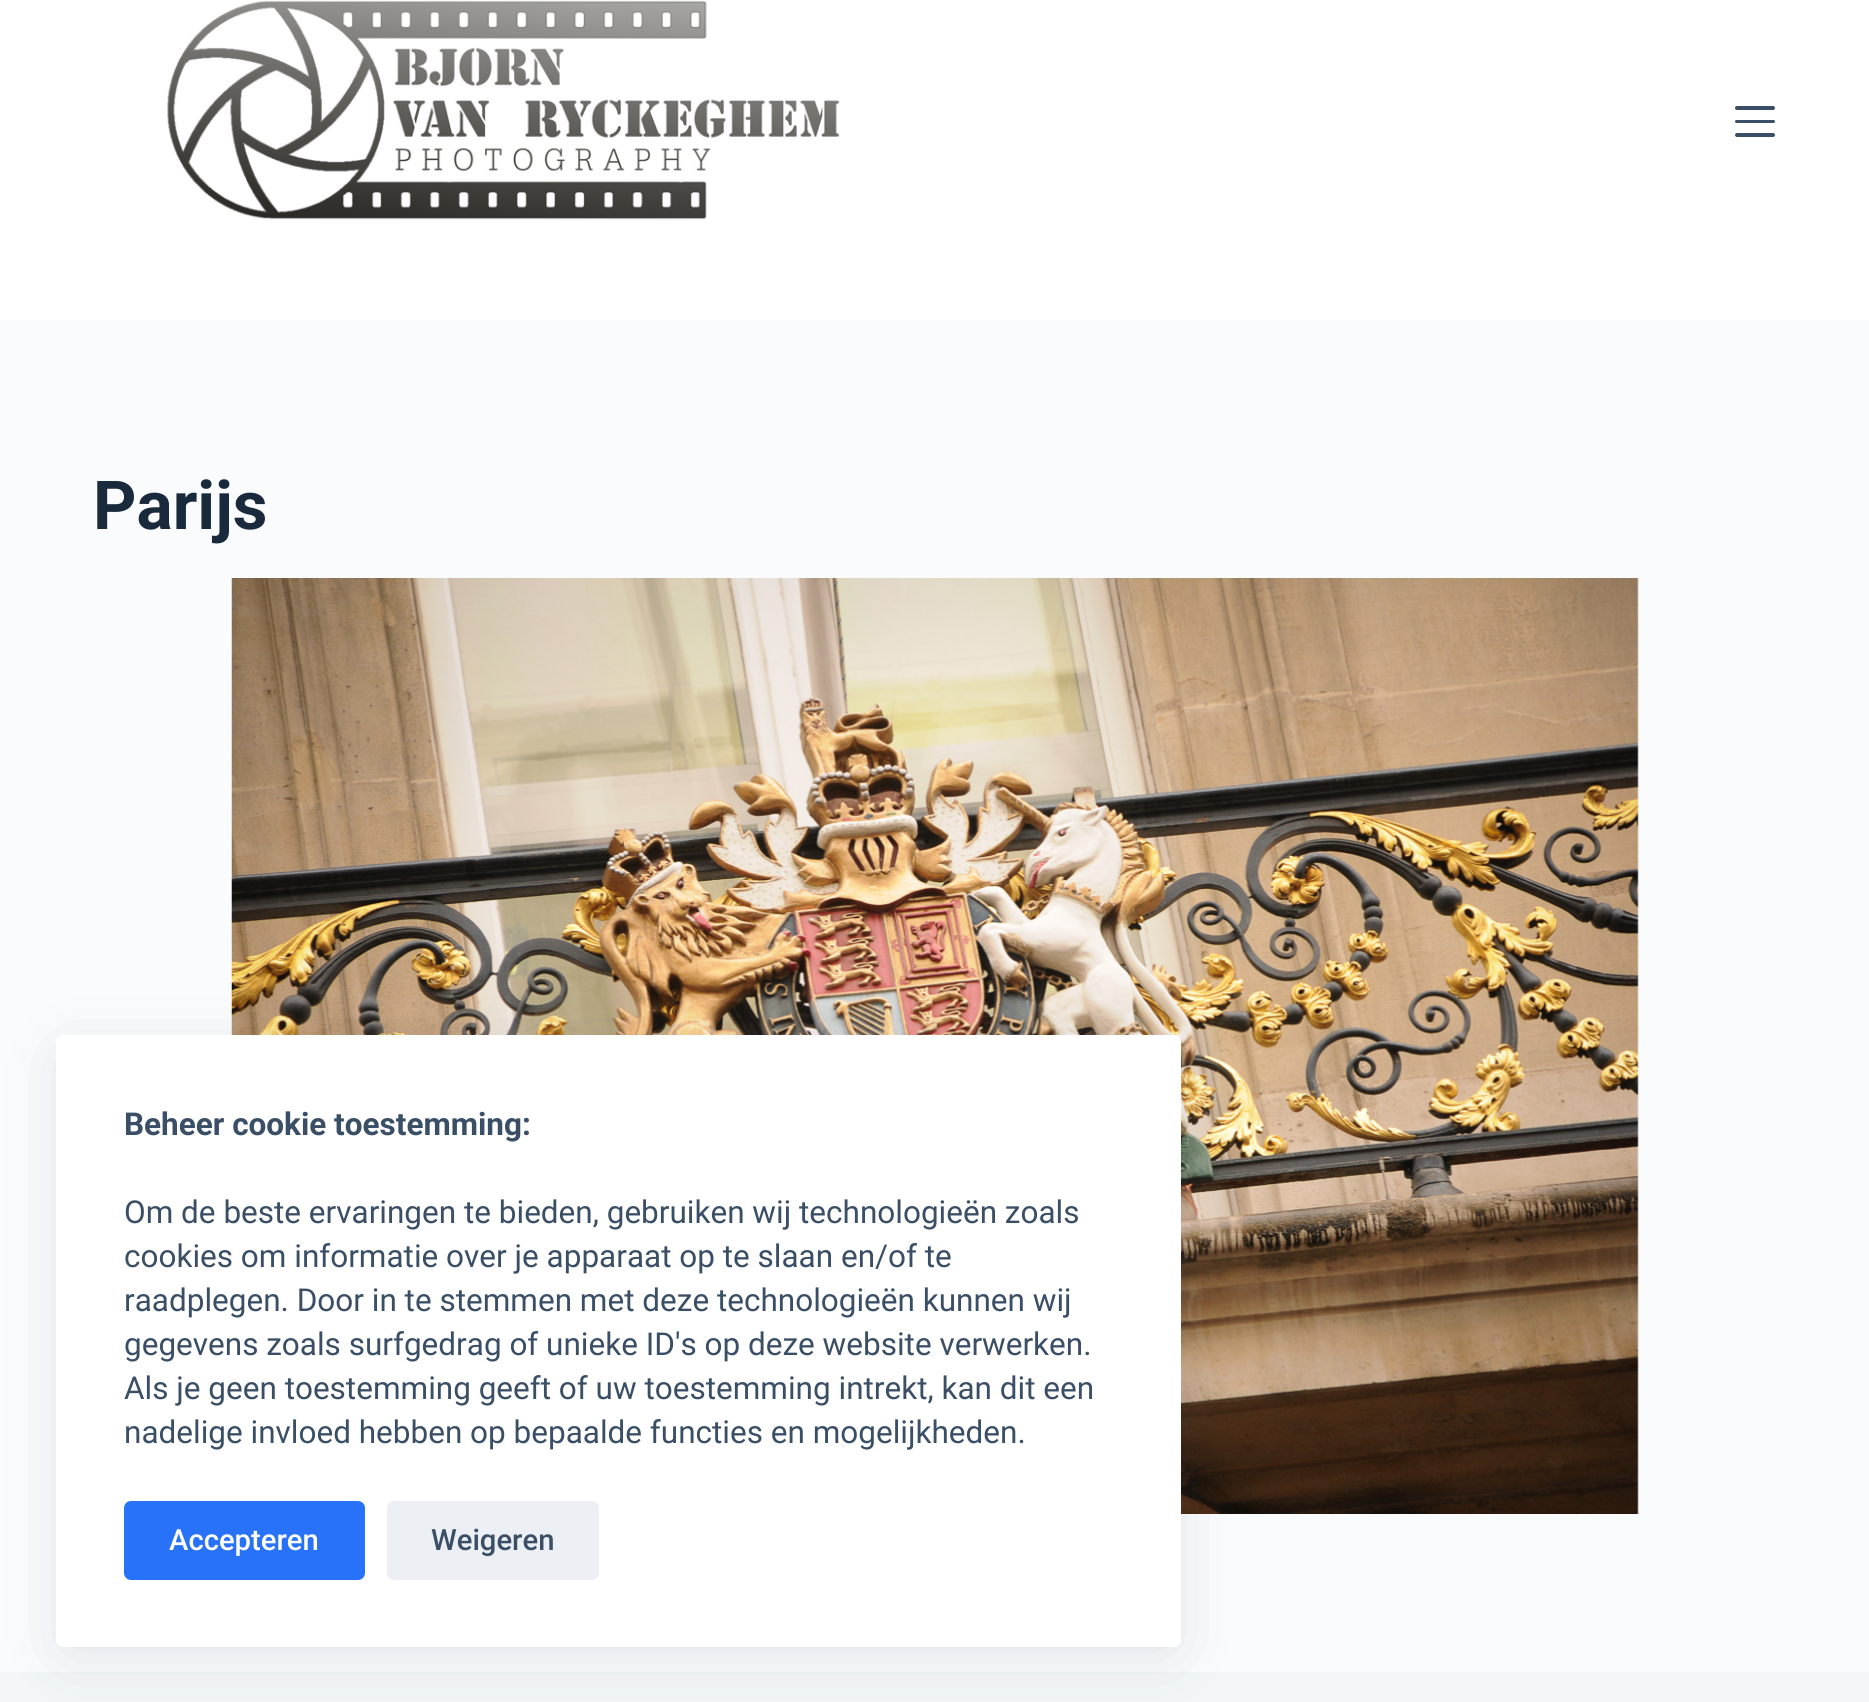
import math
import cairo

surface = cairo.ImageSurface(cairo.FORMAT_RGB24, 1869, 1702)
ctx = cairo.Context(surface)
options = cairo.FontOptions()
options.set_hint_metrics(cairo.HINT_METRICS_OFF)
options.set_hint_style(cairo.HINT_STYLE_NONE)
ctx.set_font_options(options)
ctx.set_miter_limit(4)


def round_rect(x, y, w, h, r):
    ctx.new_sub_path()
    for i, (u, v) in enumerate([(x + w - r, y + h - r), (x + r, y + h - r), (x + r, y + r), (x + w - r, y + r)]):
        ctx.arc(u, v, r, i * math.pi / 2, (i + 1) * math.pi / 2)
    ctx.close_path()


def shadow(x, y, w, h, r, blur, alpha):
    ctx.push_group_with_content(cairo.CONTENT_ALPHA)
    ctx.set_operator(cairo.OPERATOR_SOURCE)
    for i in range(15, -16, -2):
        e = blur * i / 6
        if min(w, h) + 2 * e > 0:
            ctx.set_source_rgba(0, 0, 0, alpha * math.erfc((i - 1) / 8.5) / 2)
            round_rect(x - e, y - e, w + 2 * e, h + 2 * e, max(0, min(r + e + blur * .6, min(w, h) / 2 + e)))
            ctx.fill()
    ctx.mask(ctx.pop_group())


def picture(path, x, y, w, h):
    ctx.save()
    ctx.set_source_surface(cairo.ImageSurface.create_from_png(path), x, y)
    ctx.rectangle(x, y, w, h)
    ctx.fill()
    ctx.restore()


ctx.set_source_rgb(0.98, 0.984, 0.988)
ctx.paint()
ctx.set_source_rgb(1, 1, 1)
ctx.rectangle(0, 0, 1869, 320)
ctx.fill()
picture("img1.png", 167, 0, 673, 220)
ctx.set_source_rgb(0.227, 0.31, 0.4)
round_rect(1735, 106, 40, 4, 2)
ctx.fill()
round_rect(1735, 120, 40, 3, 1.5)
ctx.fill()
round_rect(1735, 133, 40, 4, 2)
ctx.fill()
ctx.select_font_face("Roboto", cairo.FONT_SLANT_NORMAL, cairo.FONT_WEIGHT_BOLD)
ctx.set_font_size(67.5)
ctx.set_source_rgb(0.098, 0.165, 0.239)
ctx.move_to(93, 529)
ctx.show_text("Parijs")
picture("img2.png", 231, 578, 1408, 936)
ctx.set_source_rgb(0.949, 0.961, 0.969)
ctx.rectangle(0, 1672, 1869, 30)
ctx.fill()
ctx.set_source_rgb(0.133, 0.22, 0.396)
shadow(68, 1058, 1102, 589, 0, 34, 0.15)
ctx.set_source_rgb(1, 1, 1)
round_rect(56, 1035, 1125, 612, 7)
ctx.fill()
ctx.set_font_size(31.5)
ctx.set_source_rgb(0.227, 0.31, 0.4)
ctx.move_to(124, 1135)
ctx.show_text("Beheer cookie toestemming:")
ctx.select_font_face("Roboto")
ctx.move_to(124, 1223)
ctx.show_text("Om de beste ervaringen te bieden, gebruiken wij technologieën zoals")
ctx.move_to(124, 1267)
ctx.show_text("cookies om informatie over je apparaat op te slaan en/of te")
ctx.move_to(124, 1311)
ctx.show_text("raadplegen. Door in te stemmen met deze technologieën kunnen wij")
ctx.move_to(124, 1355)
ctx.show_text("gegevens zoals surfgedrag of unieke ID's op deze website verwerken.")
ctx.move_to(124, 1399)
ctx.show_text("Als je geen toestemming geeft of uw toestemming intrekt, kan dit een")
ctx.move_to(124, 1443)
ctx.show_text("nadelige invloed hebben op bepaalde functies en mogelijkheden.")
ctx.set_source_rgb(0.157, 0.447, 0.98)
round_rect(124, 1501, 241, 79, 7)
ctx.fill()
ctx.select_font_face("Roboto Medium")
ctx.set_font_size(29.25)
ctx.set_source_rgb(1, 1, 1)
ctx.move_to(169, 1550)
ctx.show_text("Accepteren")
ctx.set_source_rgb(0.925, 0.937, 0.953)
round_rect(387, 1501, 212, 79, 7)
ctx.fill()
ctx.set_source_rgb(0.227, 0.31, 0.4)
ctx.move_to(431, 1550)
ctx.show_text("Weigeren")
surface.write_to_png("page.png")
